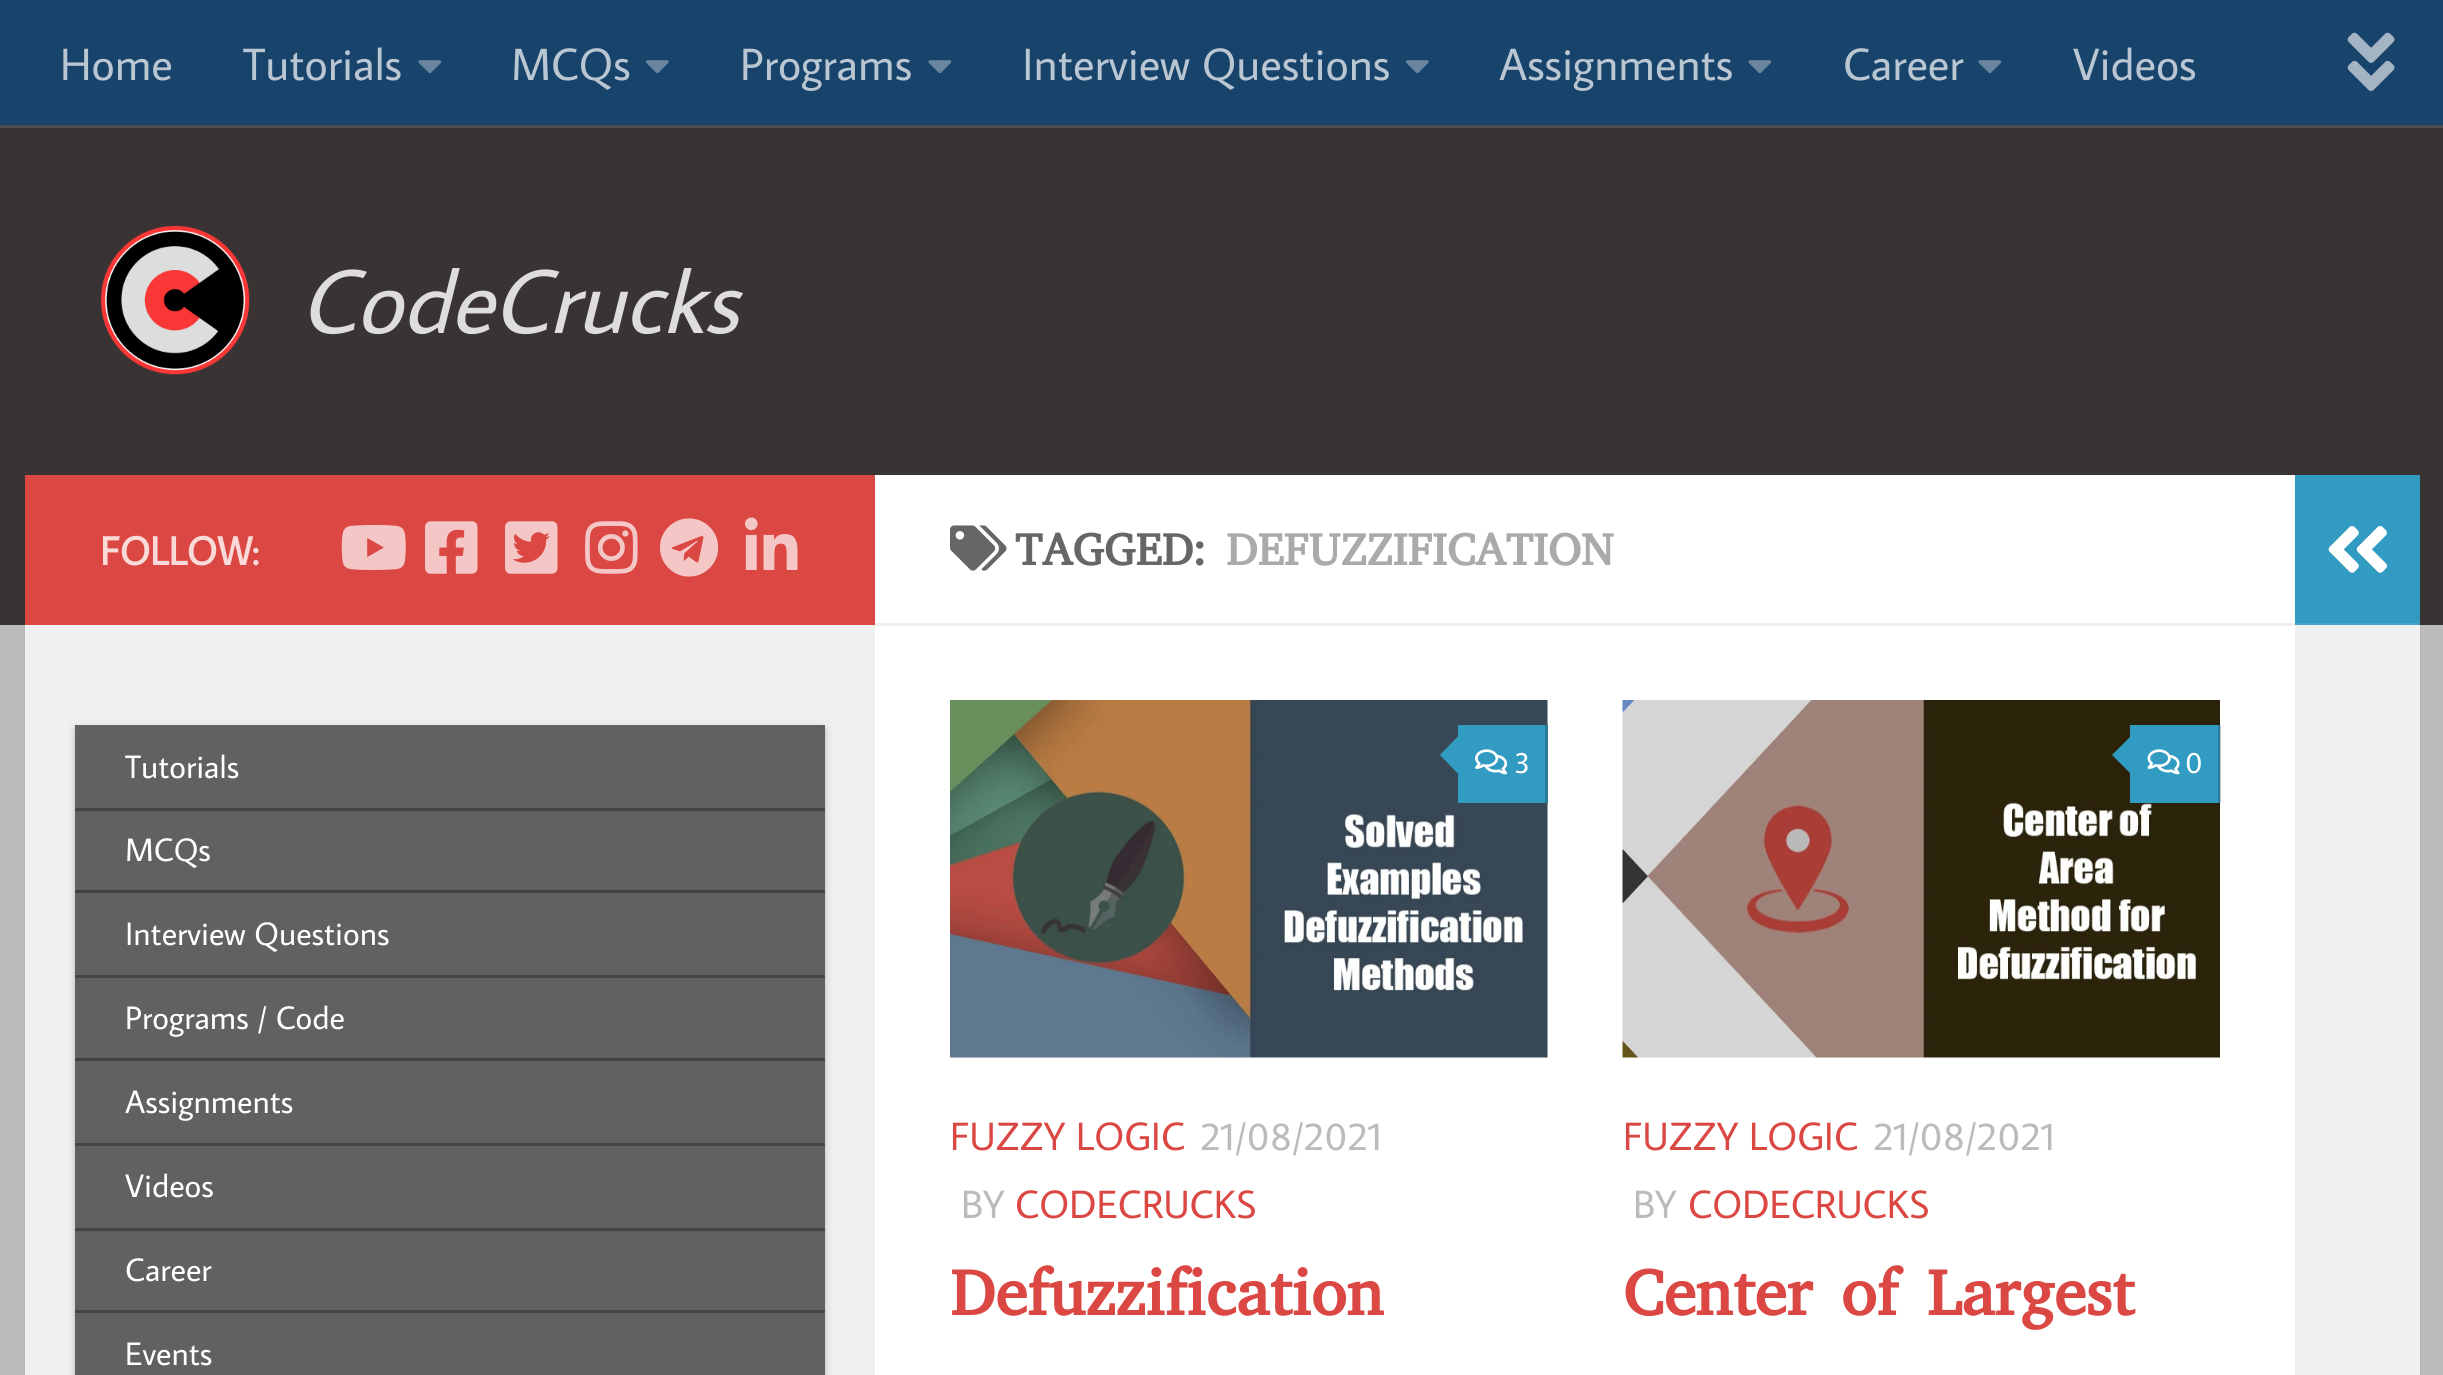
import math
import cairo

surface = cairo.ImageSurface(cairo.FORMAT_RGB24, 2443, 1375)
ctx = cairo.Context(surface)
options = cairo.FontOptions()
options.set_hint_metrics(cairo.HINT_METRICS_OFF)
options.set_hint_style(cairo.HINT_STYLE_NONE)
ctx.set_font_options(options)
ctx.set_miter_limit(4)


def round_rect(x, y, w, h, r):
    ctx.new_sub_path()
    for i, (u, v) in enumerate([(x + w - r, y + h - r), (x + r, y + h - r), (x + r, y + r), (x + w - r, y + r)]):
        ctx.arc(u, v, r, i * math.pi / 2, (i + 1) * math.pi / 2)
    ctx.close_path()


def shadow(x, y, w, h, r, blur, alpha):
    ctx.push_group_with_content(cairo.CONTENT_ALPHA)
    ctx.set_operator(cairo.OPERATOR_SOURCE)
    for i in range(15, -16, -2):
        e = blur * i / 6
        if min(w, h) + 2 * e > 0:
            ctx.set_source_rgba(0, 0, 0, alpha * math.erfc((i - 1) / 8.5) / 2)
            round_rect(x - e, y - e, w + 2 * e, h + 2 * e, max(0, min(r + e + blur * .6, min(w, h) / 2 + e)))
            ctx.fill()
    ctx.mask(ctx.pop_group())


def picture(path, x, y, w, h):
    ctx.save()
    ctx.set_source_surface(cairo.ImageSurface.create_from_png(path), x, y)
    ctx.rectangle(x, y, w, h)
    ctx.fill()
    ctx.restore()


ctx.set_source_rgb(0.737, 0.737, 0.737)
ctx.paint()
ctx.set_source_rgb(0, 0, 0)
shadow(25, 478, 2395, 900, 0, 1, 0.1)
ctx.set_source_rgba(0.039, 0, 0.004, 0.73)
ctx.rectangle(0, 128, 2443, 497)
ctx.fill()
ctx.set_source_rgb(0.345, 0.318, 0.322)
ctx.rectangle(0, 125, 2443, 3)
ctx.fill()
ctx.set_source_rgb(0, 0, 0)
shadow(0, 0, 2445, 125, 0, 6, 0.2)
ctx.set_source_rgb(0.094, 0.267, 0.42)
ctx.rectangle(0, 0, 2443, 125)
ctx.fill()
ctx.select_font_face("Average Sans")
ctx.set_font_size(45.25)
ctx.set_source_rgb(0.729, 0.78, 0.827)
ctx.move_to(60, 80)
ctx.show_text("Home")
ctx.move_to(243, 80)
ctx.show_text("Tutorials")
picture("img1.png", 418, 60, 24, 14)
ctx.move_to(511, 80)
ctx.show_text("MCQs")
picture("img2.png", 646, 60, 23, 14)
ctx.move_to(740, 80)
ctx.show_text("Programs")
picture("img1.png", 928, 60, 24, 14)
ctx.move_to(1022, 80)
ctx.show_text("Interview Questions")
picture("img2.png", 1406, 60, 23, 14)
ctx.move_to(1499, 80)
ctx.show_text("Assignments")
picture("img1.png", 1748, 60, 24, 14)
ctx.move_to(1843, 80)
ctx.show_text("Career")
picture("img1.png", 1978, 60, 24, 14)
ctx.move_to(2073, 80)
ctx.show_text("Videos")
picture("img3.png", 2347, 32, 48, 59)
picture("img4.png", 100, 225, 150, 150)
ctx.select_font_face("Average Sans", cairo.FONT_SLANT_ITALIC)
ctx.set_font_size(90.5)
ctx.set_source_rgb(0.867, 0.867, 0.867)
ctx.move_to(300, 333)
ctx.show_text("CodeCrucks")
ctx.set_source_rgb(1, 1, 1)
ctx.rectangle(875, 475, 1420, 900)
ctx.fill()
ctx.set_source_rgb(0.859, 0.278, 0.263)
ctx.rectangle(25, 475, 850, 150)
ctx.fill()
ctx.select_font_face("Average Sans", cairo.FONT_SLANT_NORMAL, cairo.FONT_WEIGHT_BOLD)
ctx.set_font_size(40)
ctx.set_source_rgb(0.973, 0.855, 0.851)
ctx.move_to(100, 565)
ctx.show_text("FOLLOW:")
picture("img5.png", 341, 525, 65, 45)
picture("img6.png", 425, 521, 53, 53)
picture("img7.png", 505, 521, 53, 53)
picture("img8.png", 585, 521, 53, 53)
picture("img9.png", 660, 518, 59, 59)
picture("img10.png", 745, 517, 53, 53)
ctx.set_source_rgb(0.941, 0.941, 0.941)
ctx.rectangle(25, 625, 850, 750)
ctx.fill()
ctx.set_source_rgb(0, 0, 0)
shadow(75, 728, 750, 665, 0, 6, 0.12)
shadow(75, 730, 750, 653, 0, 2.5, 0.14)
ctx.set_source_rgb(0.38, 0.38, 0.38)
ctx.rectangle(75, 725, 750, 650)
ctx.fill()
ctx.set_source_rgb(0.267, 0.267, 0.267)
ctx.rectangle(75, 808, 750, 3)
ctx.fill()
ctx.select_font_face("Average Sans")
ctx.set_font_size(32.5)
ctx.set_source_rgb(1, 1, 1)
ctx.move_to(125, 778)
ctx.show_text("Tutorials")
ctx.set_source_rgb(0.267, 0.267, 0.267)
ctx.rectangle(75, 890, 750, 3)
ctx.fill()
ctx.set_source_rgb(1, 1, 1)
ctx.move_to(125, 861)
ctx.show_text("MCQs")
ctx.set_source_rgb(0.267, 0.267, 0.267)
ctx.rectangle(75, 975, 750, 3)
ctx.fill()
ctx.set_source_rgb(1, 1, 1)
ctx.move_to(125, 945)
ctx.show_text("Interview Questions")
ctx.set_source_rgb(0.267, 0.267, 0.267)
ctx.rectangle(75, 1058, 750, 3)
ctx.fill()
ctx.set_source_rgb(1, 1, 1)
ctx.move_to(125, 1029)
ctx.show_text("Programs / Code")
ctx.set_source_rgb(0.267, 0.267, 0.267)
ctx.rectangle(75, 1143, 750, 3)
ctx.fill()
ctx.set_source_rgb(1, 1, 1)
ctx.move_to(125, 1113)
ctx.show_text("Assignments")
ctx.set_source_rgb(0.267, 0.267, 0.267)
ctx.rectangle(75, 1228, 750, 3)
ctx.fill()
ctx.set_source_rgb(1, 1, 1)
ctx.move_to(125, 1197)
ctx.show_text("Videos")
ctx.set_source_rgb(0.267, 0.267, 0.267)
ctx.rectangle(75, 1310, 750, 3)
ctx.fill()
ctx.set_source_rgb(1, 1, 1)
ctx.move_to(125, 1281)
ctx.show_text("Career")
ctx.move_to(125, 1365)
ctx.show_text("Events")
ctx.set_source_rgb(0.933, 0.933, 0.933)
ctx.rectangle(875, 623, 1420, 3)
ctx.fill()
picture("img11.png", 950, 525, 57, 46)
ctx.select_font_face("Abyssinica SIL", cairo.FONT_SLANT_NORMAL, cairo.FONT_WEIGHT_BOLD)
ctx.set_font_size(45.25)
ctx.set_source_rgb(0.4, 0.4, 0.4)
ctx.move_to(1015, 565)
ctx.show_text("TAGGED:")
ctx.set_source_rgb(0.667, 0.667, 0.667)
ctx.move_to(1226, 565)
ctx.show_text("DEFUZZIFICATION")
picture("img12.png", 950, 700, 598, 358)
ctx.set_source_rgb(0.196, 0.608, 0.757)
ctx.rectangle(1458, 725, 87, 78)
ctx.fill()
ctx.set_source_rgb(0.157, 0.486, 0.604)
ctx.rectangle(1545, 725, 3, 78)
ctx.fill()
ctx.set_source_rgb(0.196, 0.608, 0.757)
ctx.new_path()
ctx.move_to(1462, 732)
ctx.line_to(1462, 778)
ctx.line_to(1440, 755)
ctx.close_path()
ctx.fill()
picture("img13.png", 1475, 749, 33, 26)
ctx.select_font_face("Average Sans")
ctx.set_font_size(30)
ctx.set_source_rgb(1, 1, 1)
ctx.move_to(1514, 773)
ctx.show_text("3")
ctx.set_font_size(39.5)
ctx.set_source_rgb(0.859, 0.278, 0.263)
ctx.move_to(950, 1150)
ctx.show_text("FUZZY LOGIC")
ctx.set_source_rgb(0.733, 0.733, 0.733)
ctx.move_to(1200, 1150)
ctx.show_text("21/08/2021")
ctx.move_to(961, 1218)
ctx.show_text("BY")
ctx.set_source_rgb(0.859, 0.278, 0.263)
ctx.move_to(1015, 1218)
ctx.show_text("CODECRUCKS")
ctx.select_font_face("Abyssinica SIL", cairo.FONT_SLANT_NORMAL, cairo.FONT_WEIGHT_BOLD)
ctx.set_font_size(65)
ctx.move_to(950, 1315)
ctx.show_text("Defuzzification")
picture("img14.png", 1622, 700, 598, 358)
ctx.set_source_rgb(0.196, 0.608, 0.757)
ctx.rectangle(2130, 725, 90, 78)
ctx.fill()
ctx.set_source_rgba(0, 0, 0, 0.2)
ctx.rectangle(2218, 725, 3, 78)
ctx.fill()
ctx.set_source_rgb(0.196, 0.608, 0.757)
ctx.new_path()
ctx.move_to(2135, 732)
ctx.line_to(2135, 778)
ctx.line_to(2112, 755)
ctx.close_path()
ctx.fill()
picture("img15.png", 2147, 749, 33, 26)
ctx.select_font_face("Average Sans")
ctx.set_font_size(30)
ctx.set_source_rgb(1, 1, 1)
ctx.move_to(2185, 773)
ctx.show_text("0")
ctx.set_font_size(39.5)
ctx.set_source_rgb(0.859, 0.278, 0.263)
ctx.move_to(1623, 1150)
ctx.show_text("FUZZY LOGIC")
ctx.set_source_rgb(0.733, 0.733, 0.733)
ctx.move_to(1873, 1150)
ctx.show_text("21/08/2021")
ctx.move_to(1633, 1218)
ctx.show_text("BY")
ctx.set_source_rgb(0.859, 0.278, 0.263)
ctx.move_to(1688, 1218)
ctx.show_text("CODECRUCKS")
ctx.select_font_face("Abyssinica SIL", cairo.FONT_SLANT_NORMAL, cairo.FONT_WEIGHT_BOLD)
ctx.set_font_size(65)
ctx.move_to(1623, 1315)
ctx.show_text("Center of Largest")
ctx.set_source_rgb(0.196, 0.608, 0.757)
ctx.rectangle(2295, 475, 125, 150)
ctx.fill()
ctx.set_source_rgba(1, 1, 1, 0.1)
ctx.rectangle(2295, 623, 125, 2)
ctx.fill()
picture("img16.png", 2328, 526, 59, 47)
ctx.set_source_rgb(0.941, 0.941, 0.941)
ctx.rectangle(2295, 625, 125, 750)
ctx.fill()
surface.write_to_png("page.png")
